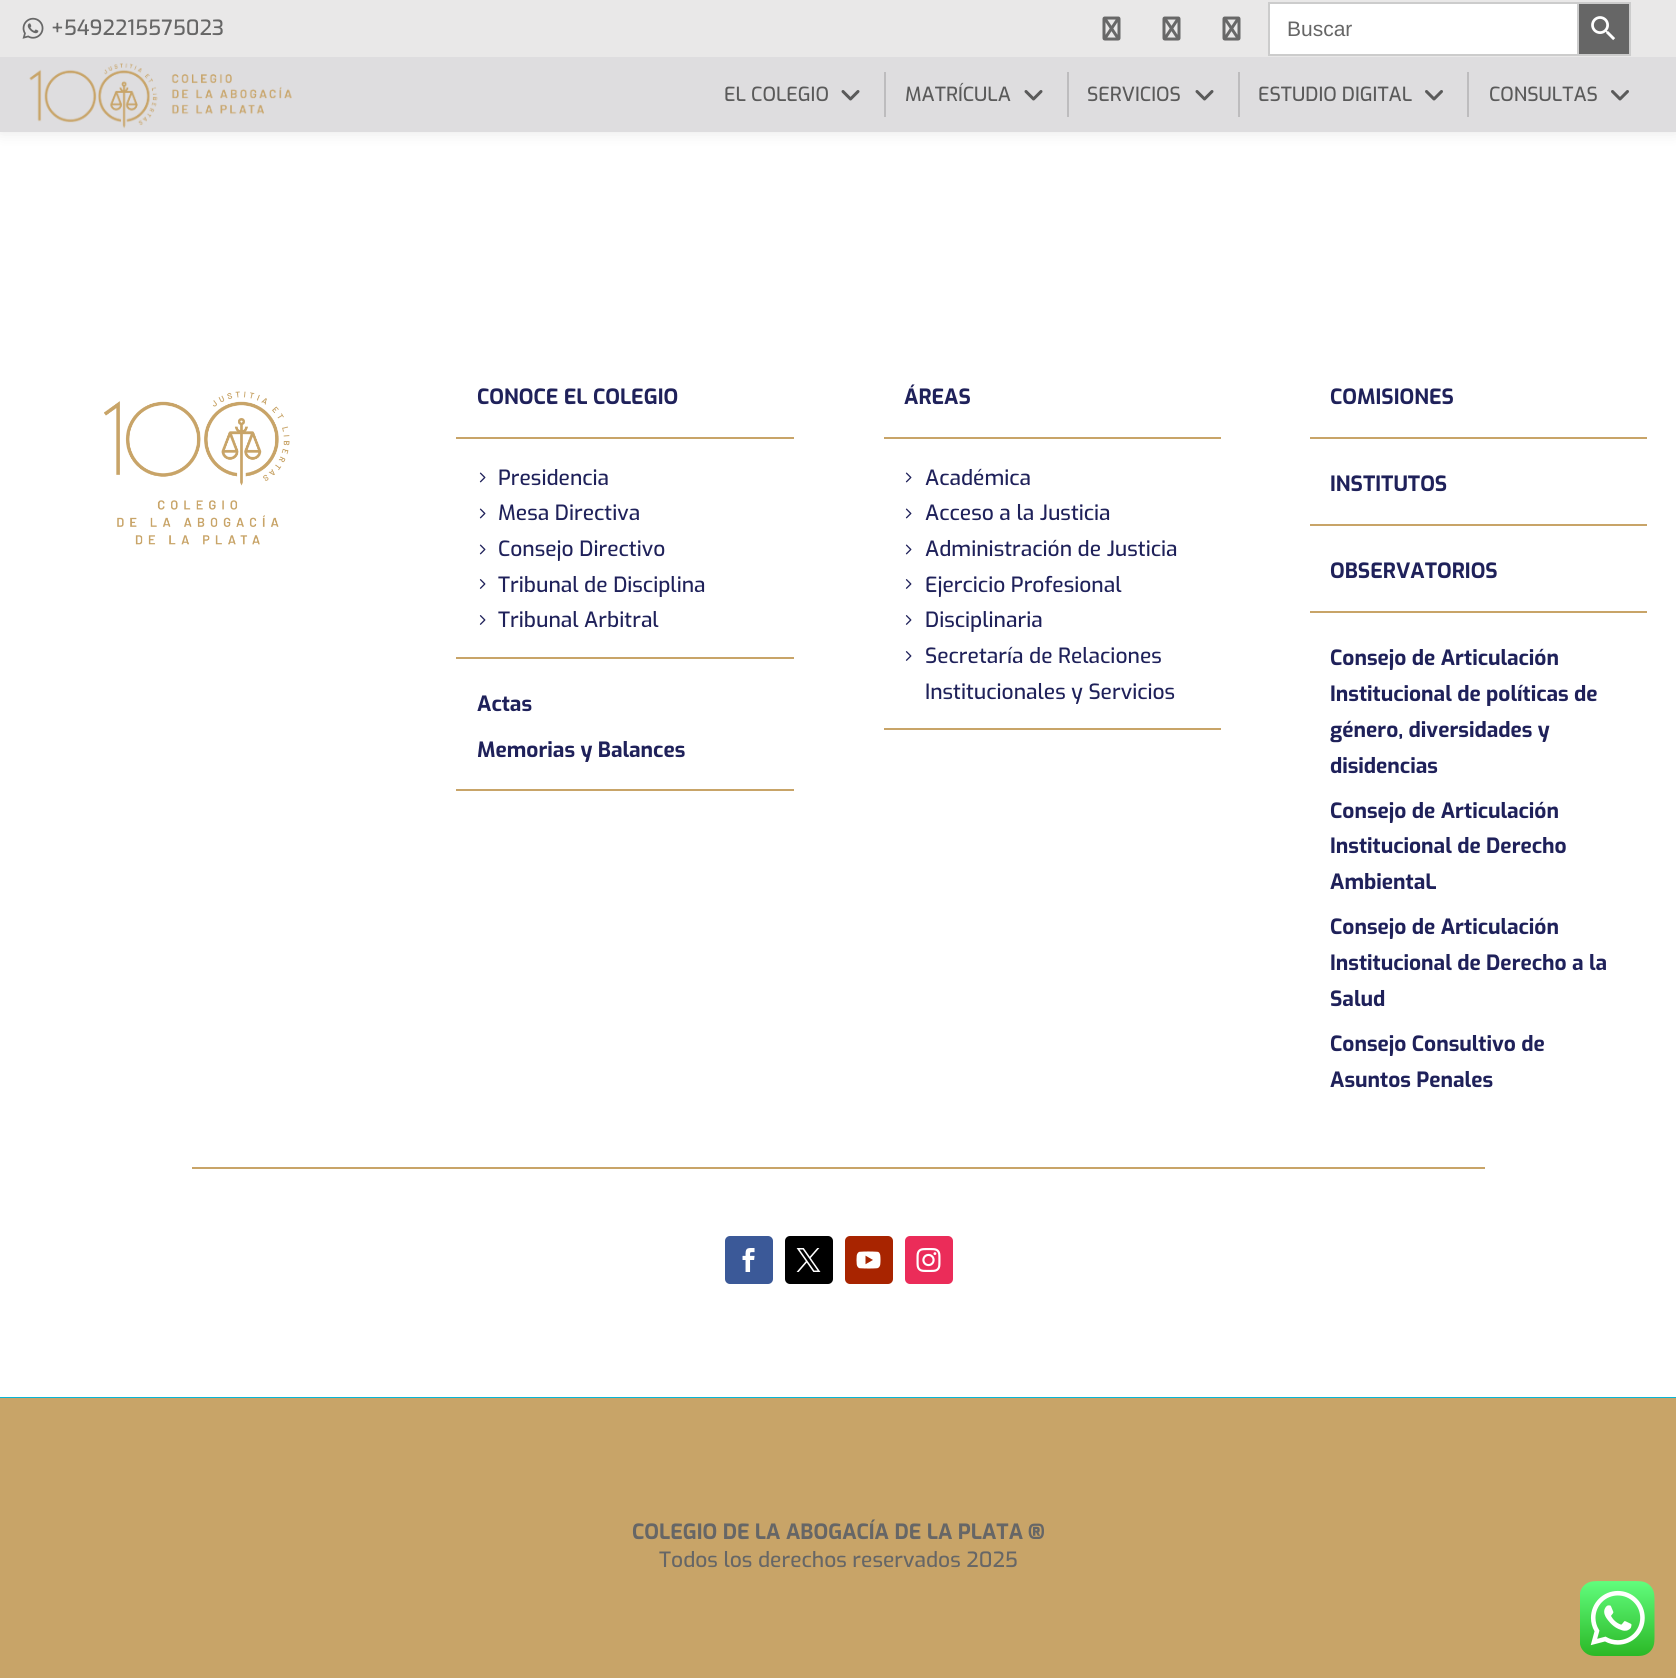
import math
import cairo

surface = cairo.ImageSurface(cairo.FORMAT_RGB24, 1676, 1678)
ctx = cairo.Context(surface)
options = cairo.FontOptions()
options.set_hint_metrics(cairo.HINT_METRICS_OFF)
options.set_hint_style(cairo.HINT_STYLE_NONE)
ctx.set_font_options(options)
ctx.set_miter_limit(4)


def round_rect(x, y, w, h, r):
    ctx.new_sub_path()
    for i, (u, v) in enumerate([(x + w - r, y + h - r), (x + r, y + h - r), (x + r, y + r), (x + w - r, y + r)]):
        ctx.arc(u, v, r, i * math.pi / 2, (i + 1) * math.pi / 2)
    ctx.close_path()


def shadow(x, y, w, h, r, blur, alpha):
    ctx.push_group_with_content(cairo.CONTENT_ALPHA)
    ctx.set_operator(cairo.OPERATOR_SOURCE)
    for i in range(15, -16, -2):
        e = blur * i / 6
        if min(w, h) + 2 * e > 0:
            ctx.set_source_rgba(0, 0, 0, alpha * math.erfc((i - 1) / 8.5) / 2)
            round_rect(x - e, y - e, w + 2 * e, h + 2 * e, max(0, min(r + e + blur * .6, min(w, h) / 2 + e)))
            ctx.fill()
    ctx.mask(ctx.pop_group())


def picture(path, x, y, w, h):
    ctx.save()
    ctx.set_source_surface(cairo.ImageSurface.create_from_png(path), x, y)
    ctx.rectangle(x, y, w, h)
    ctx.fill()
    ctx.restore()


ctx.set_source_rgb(1, 1, 1)
ctx.paint()
ctx.set_source_rgb(0, 0, 0)
shadow(0, 57, 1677, 75, 0, 7.5, 0.1)
ctx.set_source_rgb(0.914, 0.91, 0.91)
ctx.rectangle(0, 0, 1676, 57)
ctx.fill()
picture("img1.png", 22, 17, 22, 22)
ctx.select_font_face("Exo Medium")
ctx.set_font_size(21)
ctx.set_source_rgb(0.4, 0.4, 0.4)
ctx.move_to(51, 35)
ctx.show_text("+5492215575023")
picture("img2.png", 1102, 16, 19, 25)
picture("img2.png", 1162, 16, 19, 25)
picture("img2.png", 1222, 16, 19, 25)
ctx.set_source_rgb(1, 1, 1)
ctx.rectangle(1270, 4, 307, 50)
ctx.fill()
ctx.set_source_rgb(0.8, 0.8, 0.8)
ctx.rectangle(1268, 2, 309, 2)
ctx.fill()
ctx.rectangle(1268, 54, 309, 2)
ctx.fill()
ctx.rectangle(1268, 2, 2, 54)
ctx.fill()
ctx.select_font_face("Liberation Sans")
ctx.set_source_rgb(0.4, 0.4, 0.4)
ctx.move_to(1287, 36)
ctx.show_text("Buscar")
ctx.rectangle(1578, 3, 52, 52)
ctx.fill_preserve()
ctx.set_source_rgb(0.8, 0.8, 0.8)
ctx.stroke()
picture("img3.png", 1591, 16, 25, 25)
ctx.set_source_rgb(0.871, 0.867, 0.875)
ctx.rectangle(0, 57, 1676, 75)
ctx.fill()
picture("img4.png", 29, 63, 263, 66)
ctx.select_font_face("Exo Medium")
ctx.set_font_size(19.5)
ctx.set_source_rgb(0.353, 0.353, 0.353)
ctx.move_to(724, 101)
ctx.show_text("EL COLEGIO")
picture("img5.png", 841, 90, 19, 11)
ctx.set_source_rgb(0.741, 0.737, 0.745)
ctx.rectangle(884, 72, 2, 45)
ctx.fill()
ctx.set_source_rgb(0.353, 0.353, 0.353)
ctx.move_to(905, 101)
ctx.show_text("MATRÍCULA")
picture("img5.png", 1024, 90, 19, 11)
ctx.set_source_rgb(0.741, 0.737, 0.745)
ctx.rectangle(1067, 72, 2, 45)
ctx.fill()
ctx.set_source_rgb(0.353, 0.353, 0.353)
ctx.move_to(1087, 101)
ctx.show_text("SERVICIOS")
picture("img5.png", 1195, 90, 19, 11)
ctx.set_source_rgb(0.741, 0.737, 0.745)
ctx.rectangle(1238, 72, 2, 45)
ctx.fill()
ctx.set_source_rgb(0.353, 0.353, 0.353)
ctx.move_to(1258, 101)
ctx.show_text("ESTUDIO DIGITAL")
picture("img6.png", 1425, 90, 18, 11)
ctx.set_source_rgb(0.741, 0.737, 0.745)
ctx.rectangle(1467, 72, 2, 45)
ctx.fill()
ctx.set_source_rgb(0.353, 0.353, 0.353)
ctx.move_to(1489, 101)
ctx.show_text("CONSULTAS")
picture("img6.png", 1611, 90, 18, 11)
ctx.set_source_rgb(0.039, 0.71, 0.831)
ctx.rectangle(0, 1397, 1676, 1)
ctx.fill()
picture("img7.png", 104, 391, 186, 154)
ctx.select_font_face("Exo", cairo.FONT_SLANT_NORMAL, cairo.FONT_WEIGHT_BOLD)
ctx.set_font_size(21)
ctx.set_source_rgb(0.122, 0.129, 0.353)
ctx.move_to(477, 404)
ctx.show_text("CONOCE EL COLEGIO")
ctx.set_source_rgb(0.784, 0.643, 0.408)
ctx.rectangle(456, 437, 338, 2)
ctx.fill()
picture("img8.png", 479, 472, 7, 11)
ctx.select_font_face("Exo Medium")
ctx.set_source_rgb(0.122, 0.129, 0.353)
ctx.move_to(498, 485)
ctx.show_text("Presidencia")
picture("img8.png", 479, 508, 7, 11)
ctx.move_to(498, 520)
ctx.show_text("Mesa Directiva")
picture("img8.png", 479, 544, 7, 11)
ctx.move_to(498, 556)
ctx.show_text("Consejo Directivo")
picture("img9.png", 479, 579, 7, 10)
ctx.move_to(498, 592)
ctx.show_text("Tribunal de Disciplina")
picture("img9.png", 479, 615, 7, 10)
ctx.move_to(498, 627)
ctx.show_text("Tribunal Arbitral")
ctx.set_source_rgb(0.784, 0.643, 0.408)
ctx.rectangle(456, 657, 338, 2)
ctx.fill()
ctx.select_font_face("Exo", cairo.FONT_SLANT_NORMAL, cairo.FONT_WEIGHT_BOLD)
ctx.set_source_rgb(0.122, 0.129, 0.353)
ctx.move_to(477, 711)
ctx.show_text("Actas")
ctx.move_to(477, 757)
ctx.show_text("Memorias y Balances")
ctx.set_source_rgb(0.784, 0.643, 0.408)
ctx.rectangle(456, 789, 338, 2)
ctx.fill()
ctx.set_source_rgb(0.122, 0.129, 0.353)
ctx.move_to(904, 404)
ctx.show_text("ÁREAS")
ctx.set_source_rgb(0.784, 0.643, 0.408)
ctx.rectangle(884, 437, 337, 2)
ctx.fill()
picture("img8.png", 905, 472, 7, 11)
ctx.select_font_face("Exo Medium")
ctx.set_source_rgb(0.122, 0.129, 0.353)
ctx.move_to(925, 485)
ctx.show_text("Académica")
picture("img8.png", 905, 508, 7, 11)
ctx.move_to(925, 520)
ctx.show_text("Acceso a la Justicia")
picture("img8.png", 905, 544, 7, 11)
ctx.move_to(925, 556)
ctx.show_text("Administración de Justicia")
picture("img9.png", 905, 579, 7, 10)
ctx.move_to(925, 592)
ctx.show_text("Ejercicio Profesional")
picture("img9.png", 905, 615, 7, 10)
ctx.move_to(925, 627)
ctx.show_text("Disciplinaria")
picture("img9.png", 905, 651, 7, 10)
ctx.move_to(925, 663)
ctx.show_text("Secretaría de Relaciones")
ctx.move_to(925, 699)
ctx.show_text("Institucionales y Servicios")
ctx.set_source_rgb(0.784, 0.643, 0.408)
ctx.rectangle(884, 728, 337, 2)
ctx.fill()
ctx.select_font_face("Exo", cairo.FONT_SLANT_NORMAL, cairo.FONT_WEIGHT_BOLD)
ctx.set_source_rgb(0.122, 0.129, 0.353)
ctx.move_to(1330, 404)
ctx.show_text("COMISIONES")
ctx.set_source_rgb(0.784, 0.643, 0.408)
ctx.rectangle(1310, 437, 337, 2)
ctx.fill()
ctx.set_source_rgb(0.122, 0.129, 0.353)
ctx.move_to(1330, 491)
ctx.show_text("INSTITUTOS")
ctx.set_source_rgb(0.784, 0.643, 0.408)
ctx.rectangle(1310, 524, 337, 2)
ctx.fill()
ctx.set_source_rgb(0.122, 0.129, 0.353)
ctx.move_to(1330, 578)
ctx.show_text("OBSERVATORIOS")
ctx.set_source_rgb(0.784, 0.643, 0.408)
ctx.rectangle(1310, 611, 337, 2)
ctx.fill()
ctx.set_source_rgb(0.122, 0.129, 0.353)
ctx.move_to(1330, 665)
ctx.show_text("Consejo de Articulación")
ctx.move_to(1330, 701)
ctx.show_text("Institucional de políticas de")
ctx.move_to(1330, 737)
ctx.show_text("género, diversidades y")
ctx.move_to(1330, 773)
ctx.show_text("disidencias")
ctx.move_to(1330, 818)
ctx.show_text("Consejo de Articulación")
ctx.move_to(1330, 853)
ctx.show_text("Institucional de Derecho")
ctx.move_to(1330, 889)
ctx.show_text("AmbientaL")
ctx.move_to(1330, 934)
ctx.show_text("Consejo de Articulación")
ctx.move_to(1330, 970)
ctx.show_text("Institucional de Derecho a la")
ctx.move_to(1330, 1006)
ctx.show_text("Salud")
ctx.move_to(1330, 1051)
ctx.show_text("Consejo Consultivo de")
ctx.move_to(1330, 1087)
ctx.show_text("Asuntos Penales")
ctx.set_source_rgb(0.784, 0.643, 0.408)
ctx.rectangle(192, 1167, 1293, 2)
ctx.fill()
ctx.set_source_rgb(0.231, 0.349, 0.596)
round_rect(725, 1236, 48, 48, 5)
ctx.fill()
picture("img10.png", 742, 1248, 13, 24)
ctx.set_source_rgb(0, 0, 0)
round_rect(785, 1236, 48, 48, 5)
ctx.fill()
picture("img11.png", 796, 1248, 25, 24)
ctx.set_source_rgb(0.659, 0.141, 0)
round_rect(845, 1236, 48, 48, 5)
ctx.fill()
picture("img12.png", 856, 1251, 25, 18)
ctx.set_source_rgb(0.918, 0.173, 0.349)
round_rect(905, 1236, 48, 48, 5)
ctx.fill()
picture("img13.png", 916, 1248, 25, 24)
ctx.set_source_rgb(0.784, 0.643, 0.408)
ctx.rectangle(0, 1398, 1676, 280)
ctx.fill()
ctx.set_source_rgb(0.4, 0.4, 0.4)
ctx.move_to(632, 1539)
ctx.show_text("COLEGIO DE LA ABOGACÍA DE LA PLATA")
ctx.select_font_face("Exo Black")
ctx.move_to(1028, 1539)
ctx.show_text("®")
ctx.select_font_face("Exo Medium")
ctx.move_to(659, 1567)
ctx.show_text("Todos los derechos reservados 2025")
picture("img14.png", 1580, 1581, 75, 75)
surface.write_to_png("page.png")
